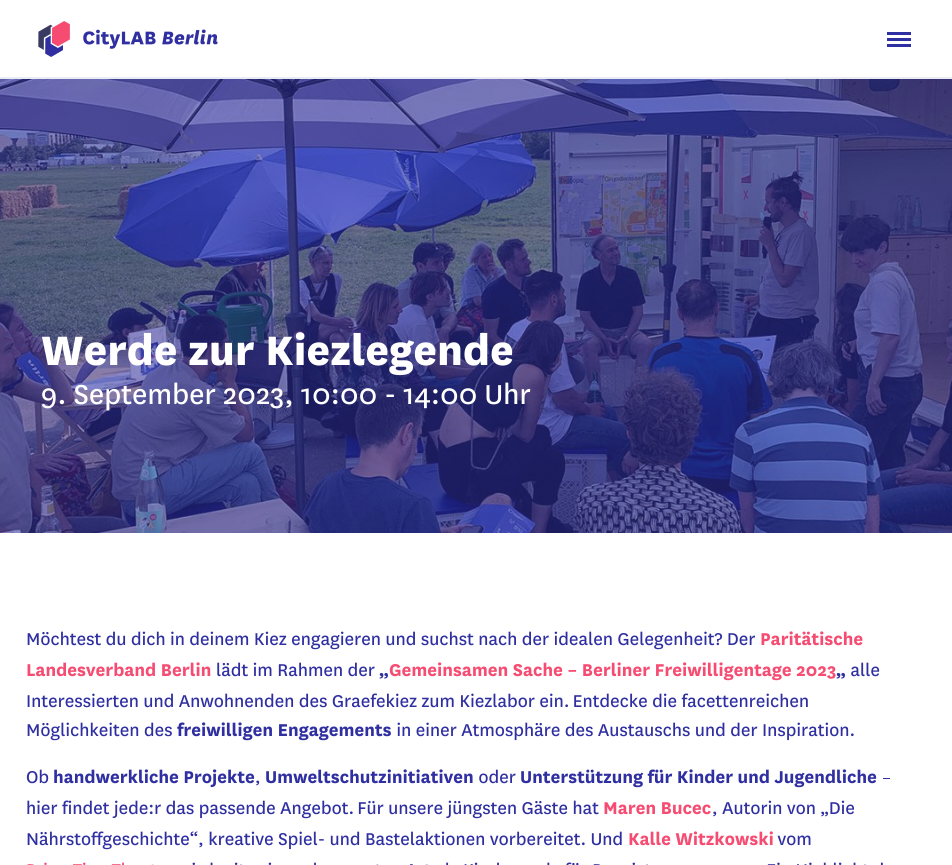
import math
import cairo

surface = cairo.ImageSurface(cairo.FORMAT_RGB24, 952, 865)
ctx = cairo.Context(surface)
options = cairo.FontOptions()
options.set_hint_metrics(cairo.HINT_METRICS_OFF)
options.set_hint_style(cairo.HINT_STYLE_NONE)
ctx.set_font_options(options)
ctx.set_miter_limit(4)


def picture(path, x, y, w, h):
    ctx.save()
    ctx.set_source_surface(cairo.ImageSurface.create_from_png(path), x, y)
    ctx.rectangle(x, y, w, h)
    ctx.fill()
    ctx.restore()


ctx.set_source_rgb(1, 1, 1)
ctx.paint()
ctx.set_source_rgb(0.918, 0.918, 0.965)
ctx.rectangle(0, 77, 952, 2)
ctx.fill()
picture("img1.png", 38, 21, 180, 36)
ctx.set_source_rgb(0.18, 0.184, 0.635)
ctx.rectangle(887, 32, 24, 3)
ctx.fill()
ctx.rectangle(887, 38, 24, 3)
ctx.fill()
ctx.rectangle(887, 44, 24, 3)
ctx.fill()
picture("img2.png", 0, 79, 952, 454)
picture("img3.png", 42, 332, 471, 44)
picture("img4.png", 41, 382, 490, 29)
picture("img5.png", 27, 631, 728, 19)
picture("img6.png", 761, 631, 102, 15)
picture("img7.png", 27, 662, 184, 15)
picture("img8.png", 217, 662, 158, 15)
picture("img9.png", 379, 673, 9, 6)
picture("img10.png", 389, 662, 447, 19)
picture("img9.png", 836, 673, 9, 6)
picture("img11.png", 851, 662, 29, 15)
picture("img12.png", 27, 693, 781, 15)
picture("img13.png", 27, 722, 145, 19)
picture("img14.png", 177, 722, 214, 19)
picture("img15.png", 397, 722, 457, 19)
picture("img16.png", 26, 769, 23, 15)
picture("img17.png", 54, 769, 201, 19)
picture("img18.png", 266, 769, 207, 15)
picture("img19.png", 479, 769, 37, 15)
picture("img20.png", 521, 769, 356, 19)
ctx.set_source_rgb(0.184, 0.184, 0.635)
ctx.rectangle(883, 778, 7, 1)
ctx.fill()
picture("img21.png", 256, 780, 4, 6)
picture("img22.png", 27, 800, 572, 19)
picture("img23.png", 604, 802, 107, 13)
picture("img24.png", 713, 800, 142, 17)
picture("img25.png", 27, 831, 595, 19)
picture("img26.png", 629, 831, 144, 15)
picture("img27.png", 777, 835, 34, 11)
picture("img28.png", 27, 862, 127, 3)
picture("img29.png", 192, 862, 691, 3)
surface.write_to_png("page.png")
